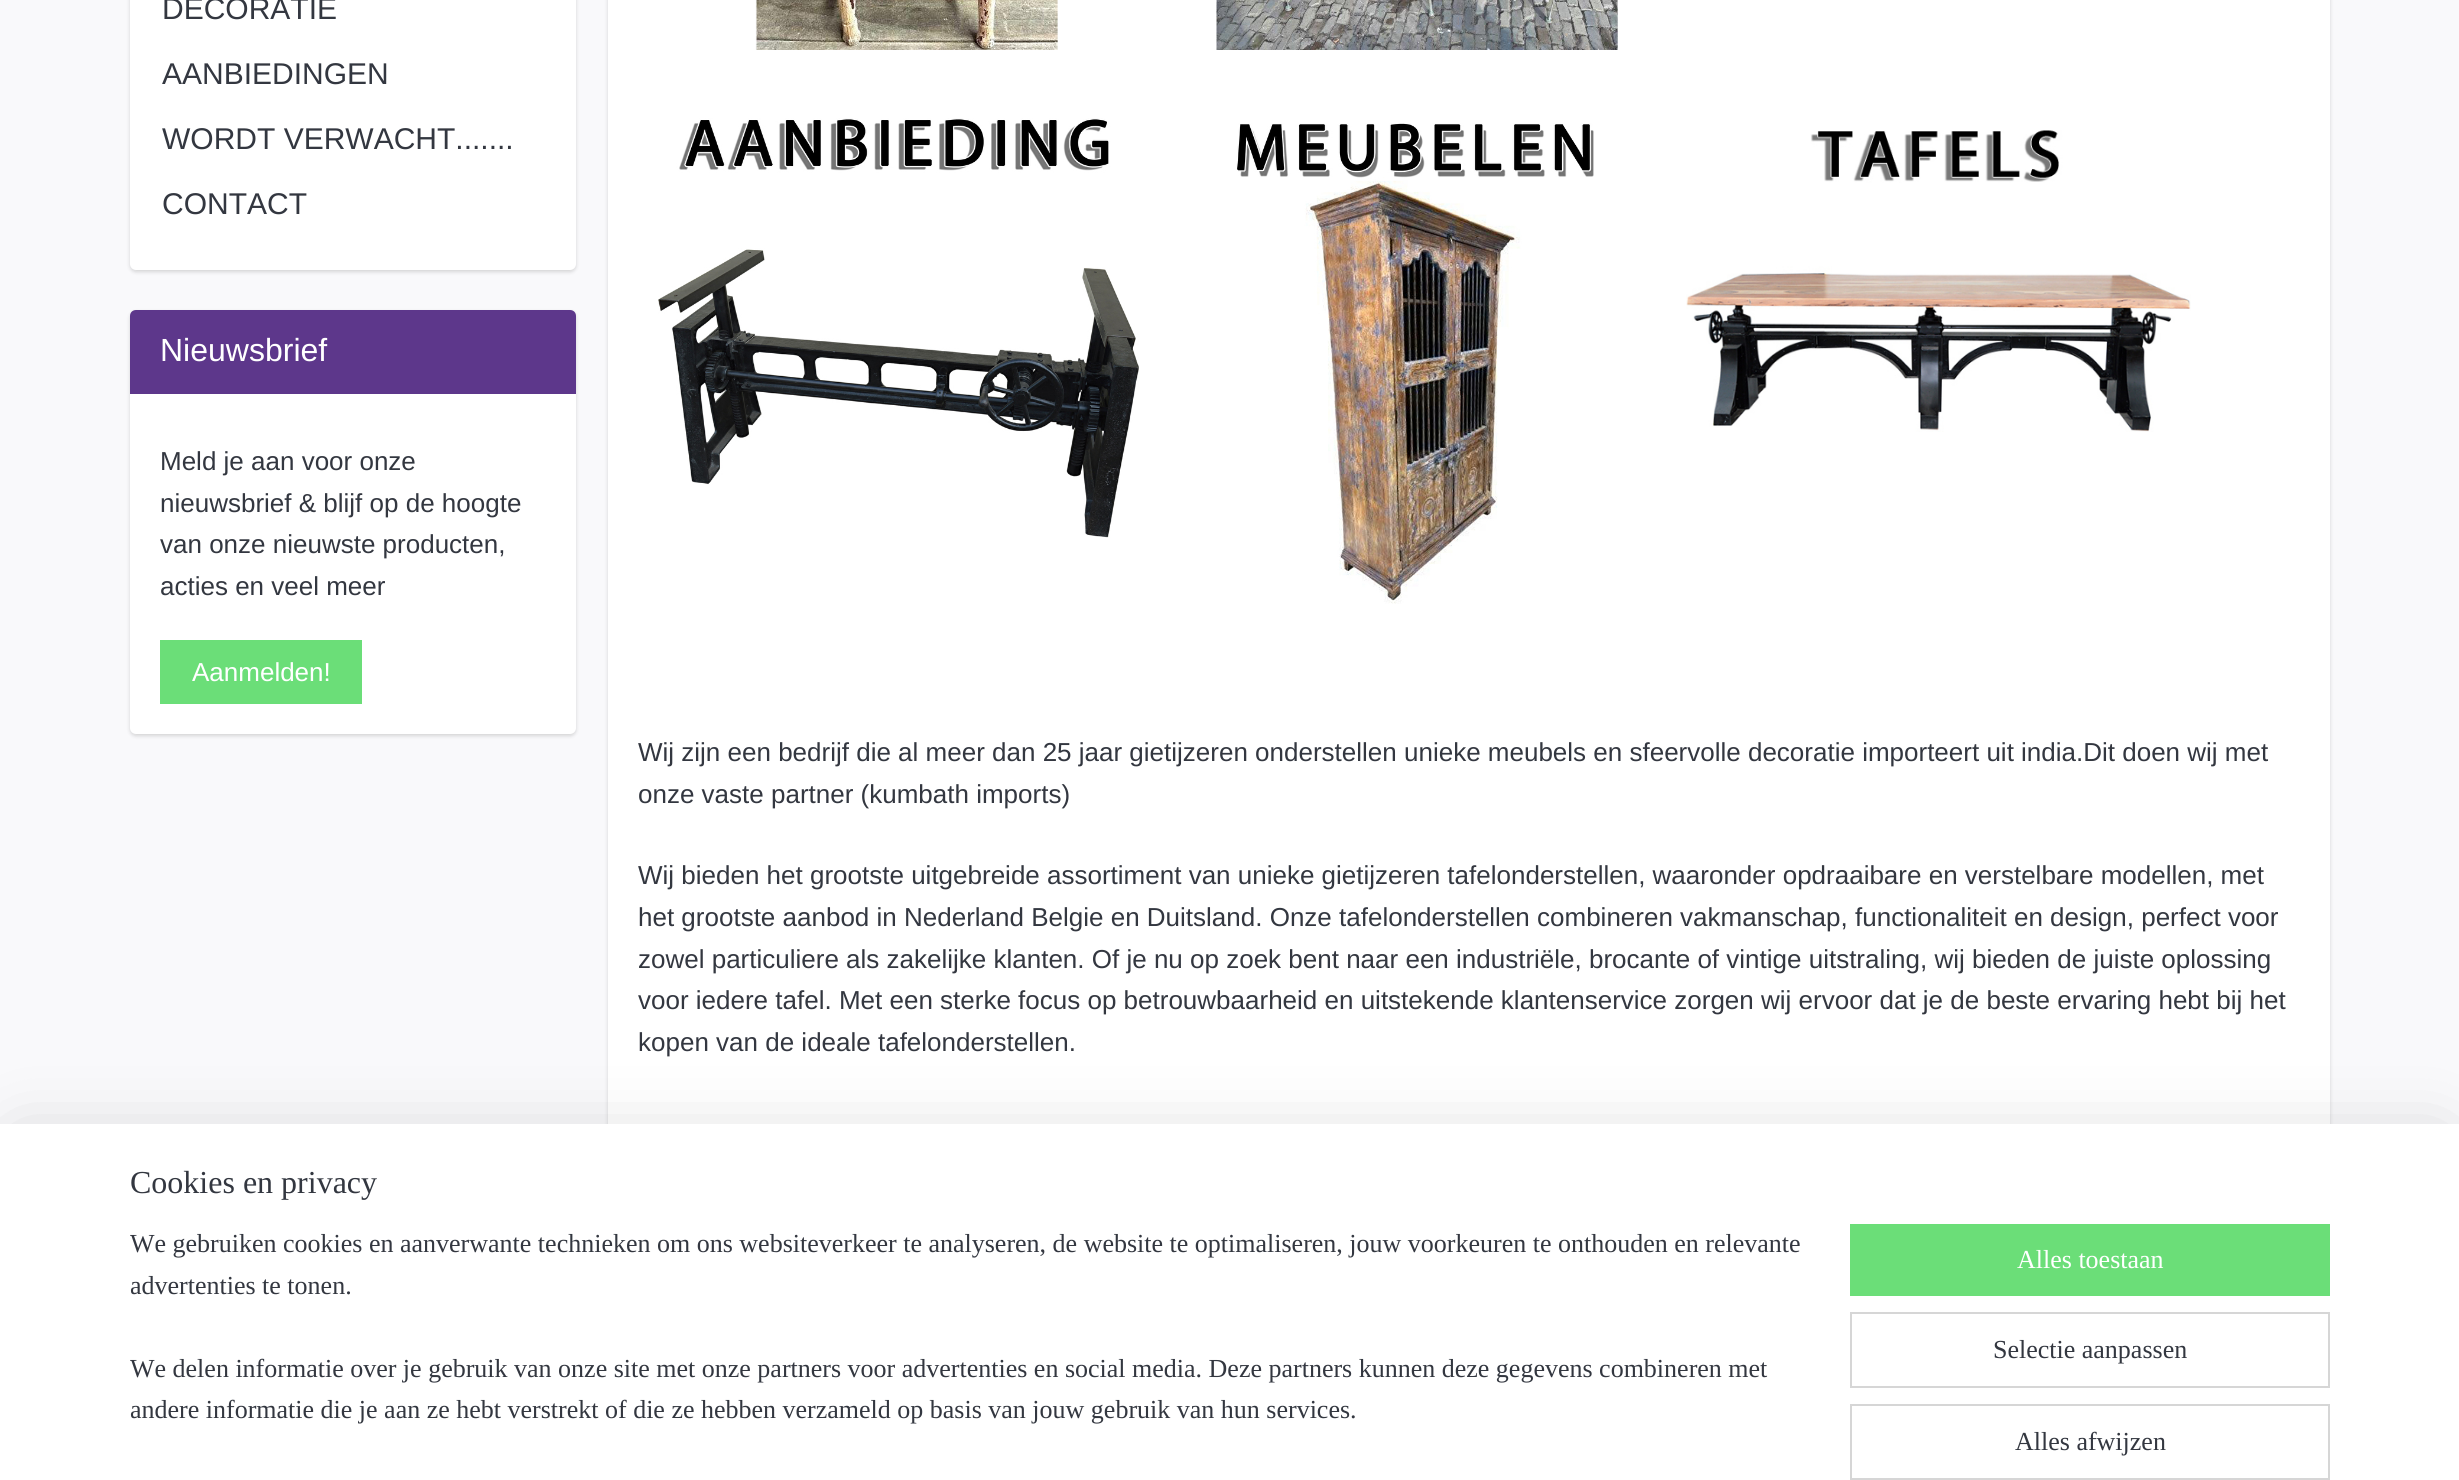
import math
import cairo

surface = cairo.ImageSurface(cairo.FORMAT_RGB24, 2459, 1480)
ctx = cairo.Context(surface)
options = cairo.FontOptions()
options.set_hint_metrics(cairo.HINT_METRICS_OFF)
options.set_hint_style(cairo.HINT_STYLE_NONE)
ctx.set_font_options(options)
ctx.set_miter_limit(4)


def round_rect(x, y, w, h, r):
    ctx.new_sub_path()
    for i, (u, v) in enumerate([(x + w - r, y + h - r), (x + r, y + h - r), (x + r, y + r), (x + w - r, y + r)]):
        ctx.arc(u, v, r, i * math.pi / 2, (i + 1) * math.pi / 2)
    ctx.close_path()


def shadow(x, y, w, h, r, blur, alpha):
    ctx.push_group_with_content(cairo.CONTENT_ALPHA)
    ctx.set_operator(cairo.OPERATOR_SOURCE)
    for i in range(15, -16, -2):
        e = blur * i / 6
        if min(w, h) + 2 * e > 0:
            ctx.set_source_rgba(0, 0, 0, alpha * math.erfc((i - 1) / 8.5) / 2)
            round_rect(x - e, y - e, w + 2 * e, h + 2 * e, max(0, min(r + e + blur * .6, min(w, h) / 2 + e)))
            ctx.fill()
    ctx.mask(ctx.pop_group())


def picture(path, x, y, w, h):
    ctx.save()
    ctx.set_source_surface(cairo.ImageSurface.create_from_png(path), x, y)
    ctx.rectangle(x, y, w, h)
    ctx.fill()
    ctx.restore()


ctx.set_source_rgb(0.973, 0.976, 0.984)
ctx.paint()
ctx.set_source_rgb(0, 0, 0)
shadow(130, -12, 446, 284, 6, 2, 0.15)
ctx.set_source_rgb(1, 1, 1)
round_rect(130, -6, 446, 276, 6)
ctx.fill()
ctx.select_font_face("Liberation Sans")
ctx.set_font_size(30)
ctx.set_source_rgb(0.2, 0.216, 0.251)
ctx.move_to(162, 19)
ctx.show_text("DECORATIE")
ctx.move_to(162, 84)
ctx.show_text("AANBIEDINGEN")
ctx.move_to(162, 149)
ctx.show_text("WORDT VERWACHT.......")
ctx.move_to(162, 214)
ctx.show_text("CONTACT")
ctx.set_source_rgb(0, 0, 0)
shadow(130, 312, 446, 424, 6, 2, 0.15)
ctx.set_source_rgb(1, 1, 1)
round_rect(130, 310, 446, 424, 6)
ctx.fill()
ctx.set_source_rgb(0.365, 0.216, 0.545)
ctx.new_path()
ctx.move_to(136, 310)
ctx.line_to(570, 310)
ctx.curve_to(573.5, 310, 576, 312.5, 576, 316)
ctx.line_to(576, 394)
ctx.line_to(130, 394)
ctx.line_to(130, 316)
ctx.curve_to(130, 312.5, 132.5, 310, 136, 310)
ctx.close_path()
ctx.fill()
ctx.set_font_size(32)
ctx.set_source_rgb(1, 1, 1)
ctx.move_to(160, 361)
ctx.show_text("Nieuwsbrief")
ctx.set_font_size(26)
ctx.set_source_rgb(0.2, 0.216, 0.251)
ctx.move_to(160, 470)
ctx.show_text("Meld je aan voor onze")
ctx.move_to(160, 512)
ctx.show_text("nieuwsbrief & blijf op de hoogte")
ctx.move_to(160, 553)
ctx.show_text("van onze nieuwste producten,")
ctx.move_to(160, 595)
ctx.show_text("acties en veel meer")
ctx.set_source_rgb(0.42, 0.871, 0.471)
ctx.rectangle(160, 640, 202, 64)
ctx.fill()
ctx.set_source_rgb(1, 1, 1)
ctx.move_to(192, 681)
ctx.show_text("Aanmelden!")
ctx.set_source_rgb(0, 0, 0)
shadow(608, -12, 1722, 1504, 6, 2, 0.15)
ctx.set_source_rgb(1, 1, 1)
ctx.rectangle(608, 0, 1722, 1124)
ctx.fill()
picture("img1.png", 755, 0, 303, 50)
picture("img2.png", 1216, 0, 402, 50)
picture("img3.png", 658, 118, 481, 420)
picture("img4.png", 1236, 123, 358, 481)
picture("img5.png", 1686, 130, 505, 302)
ctx.set_source_rgb(0.2, 0.216, 0.251)
ctx.move_to(638, 761)
ctx.show_text("Wij zijn een bedrijf die al meer dan 25 jaar gietijzeren onderstellen unieke meubels en sfeervolle decoratie importeert uit india.Dit doen wij met")
ctx.move_to(638, 803)
ctx.show_text("onze vaste partner (kumbath imports)")
ctx.move_to(638, 884)
ctx.show_text("Wij bieden het grootste uitgebreide assortiment van unieke gietijzeren tafelonderstellen, waaronder opdraaibare en verstelbare modellen, met")
ctx.move_to(638, 926)
ctx.show_text("het grootste aanbod in Nederland Belgie en Duitsland. Onze tafelonderstellen combineren vakmanschap, functionaliteit en design, perfect voor")
ctx.move_to(638, 968)
ctx.show_text("zowel particuliere als zakelijke klanten. Of je nu op zoek bent naar een industriële, brocante of vintige uitstraling, wij bieden de juiste oplossing")
ctx.move_to(638, 1009)
ctx.show_text("voor iedere tafel. Met een sterke focus op betrouwbaarheid en uitstekende klantenservice zorgen wij ervoor dat je de beste ervaring hebt bij het")
ctx.move_to(638, 1051)
ctx.show_text("kopen van de ideale tafelonderstellen.")
ctx.set_source_rgb(0, 0, 0)
shadow(20, 1144, 2420, 316, 0, 36, 0.2)
ctx.set_source_rgb(1, 1, 1)
ctx.rectangle(0, 1124, 2459, 356)
ctx.fill()
ctx.select_font_face("Liberation Serif")
ctx.set_font_size(32)
ctx.set_source_rgb(0.2, 0.216, 0.251)
ctx.move_to(130, 1193)
ctx.show_text("Cookies en privacy")
ctx.set_font_size(26)
ctx.move_to(130, 1252)
ctx.show_text("We gebruiken cookies en aanverwante technieken om ons websiteverkeer te analyseren, de website te optimaliseren, jouw voorkeuren te onthouden en relevante")
ctx.move_to(130, 1294)
ctx.show_text("advertenties te tonen.")
ctx.move_to(130, 1377)
ctx.show_text("We delen informatie over je gebruik van onze site met onze partners voor advertenties en social media. Deze partners kunnen deze gegevens combineren met")
ctx.move_to(130, 1418)
ctx.show_text("andere informatie die je aan ze hebt verstrekt of die ze hebben verzameld op basis van jouw gebruik van hun services.")
ctx.set_source_rgb(0.42, 0.871, 0.471)
ctx.rectangle(1850, 1224, 480, 72)
ctx.fill()
ctx.set_source_rgb(1, 1, 1)
ctx.move_to(2017, 1268)
ctx.show_text("Alles toestaan")
ctx.rectangle(1851, 1313, 478, 74)
ctx.set_source_rgb(0.839, 0.839, 0.839)
ctx.stroke()
ctx.set_source_rgb(0.2, 0.216, 0.251)
ctx.move_to(1993, 1358)
ctx.show_text("Selectie aanpassen")
ctx.rectangle(1851, 1405, 478, 74)
ctx.set_source_rgb(0.839, 0.839, 0.839)
ctx.stroke()
ctx.set_source_rgb(0.2, 0.216, 0.251)
ctx.move_to(2015, 1450)
ctx.show_text("Alles afwijzen")
surface.write_to_png("page.png")
